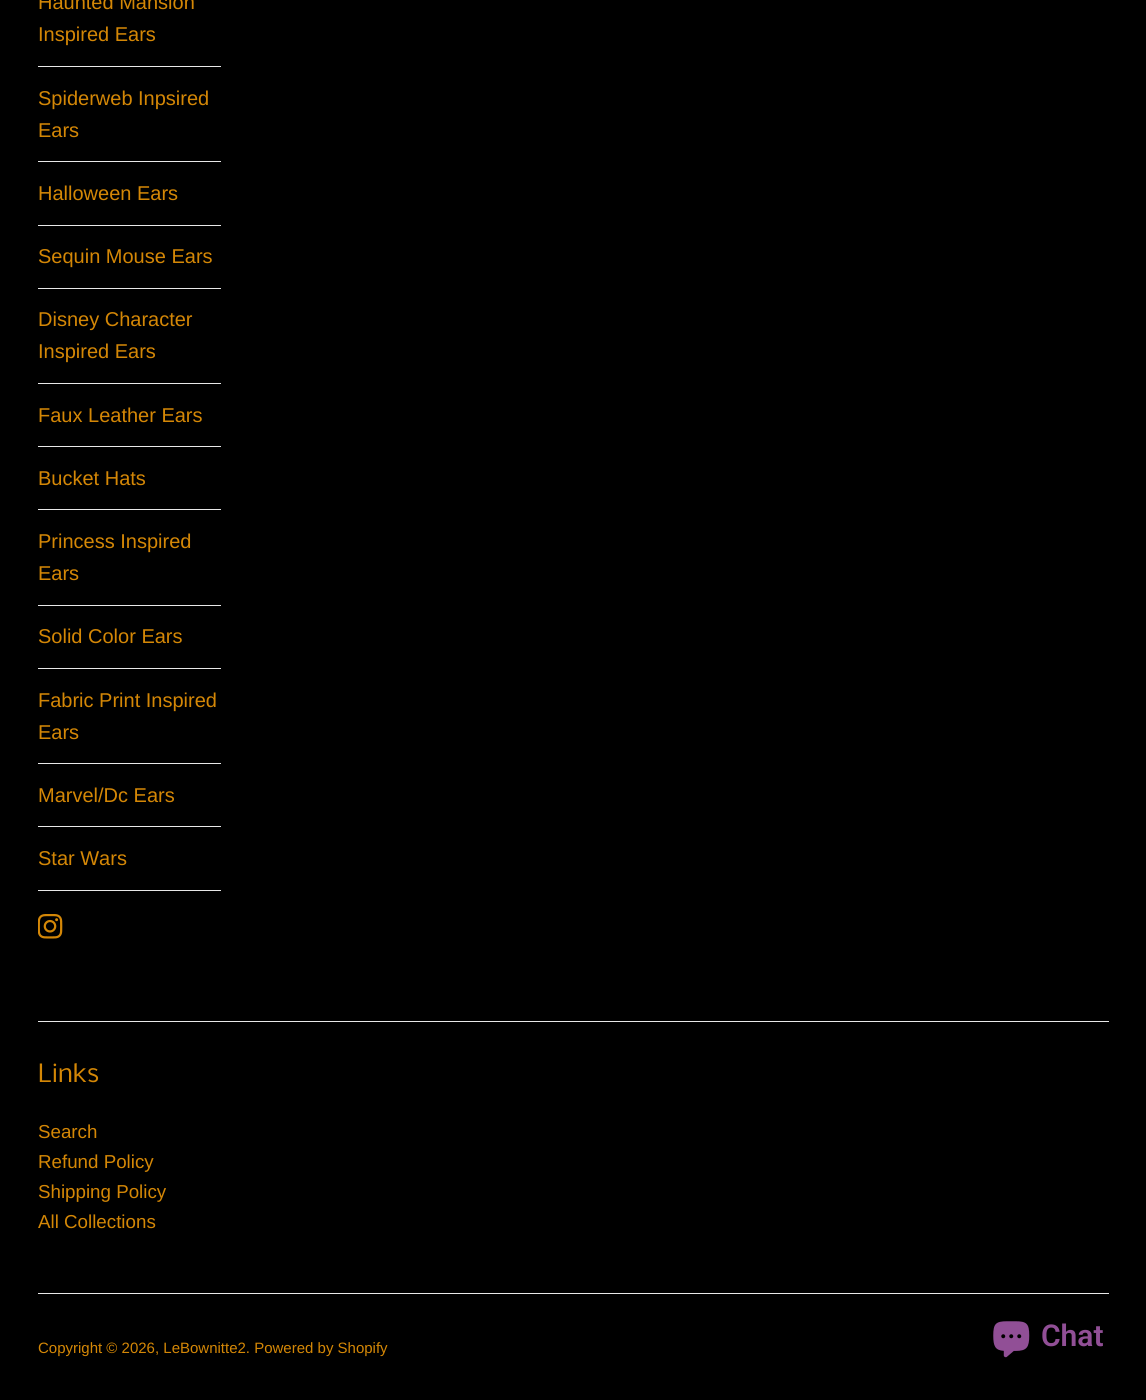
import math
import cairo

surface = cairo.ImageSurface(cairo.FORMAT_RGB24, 1146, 1400)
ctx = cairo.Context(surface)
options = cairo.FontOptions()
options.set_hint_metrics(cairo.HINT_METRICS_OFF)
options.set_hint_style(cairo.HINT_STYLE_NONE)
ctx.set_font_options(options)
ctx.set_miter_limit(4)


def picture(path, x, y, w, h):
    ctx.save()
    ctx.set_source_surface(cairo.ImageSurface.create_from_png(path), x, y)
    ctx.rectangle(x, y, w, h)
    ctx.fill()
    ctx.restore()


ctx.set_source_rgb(0, 0, 0)
ctx.paint()
ctx.set_source_rgb(0.91, 0.91, 0.91)
ctx.rectangle(38, 66, 183, 1)
ctx.fill()
ctx.select_font_face("Liberation Sans")
ctx.set_font_size(20)
ctx.set_source_rgb(0.831, 0.529, 0.027)
ctx.move_to(38, 9)
ctx.show_text("Haunted Mansion")
ctx.move_to(38, 41)
ctx.show_text("Inspired Ears")
ctx.set_source_rgb(0.91, 0.91, 0.91)
ctx.rectangle(38, 161, 183, 1)
ctx.fill()
ctx.set_source_rgb(0.831, 0.529, 0.027)
ctx.move_to(38, 105)
ctx.show_text("Spiderweb Inpsired")
ctx.move_to(38, 137)
ctx.show_text("Ears")
ctx.set_source_rgb(0.91, 0.91, 0.91)
ctx.rectangle(38, 225, 183, 1)
ctx.fill()
ctx.set_source_rgb(0.831, 0.529, 0.027)
ctx.move_to(38, 200)
ctx.show_text("Halloween Ears")
ctx.set_source_rgb(0.91, 0.91, 0.91)
ctx.rectangle(38, 288, 183, 1)
ctx.fill()
ctx.set_source_rgb(0.831, 0.529, 0.027)
ctx.move_to(38, 263)
ctx.show_text("Sequin Mouse Ears")
ctx.set_source_rgb(0.91, 0.91, 0.91)
ctx.rectangle(38, 383, 183, 1)
ctx.fill()
ctx.set_source_rgb(0.831, 0.529, 0.027)
ctx.move_to(38, 326)
ctx.show_text("Disney Character")
ctx.move_to(38, 358)
ctx.show_text("Inspired Ears")
ctx.set_source_rgb(0.91, 0.91, 0.91)
ctx.rectangle(38, 446, 183, 1)
ctx.fill()
ctx.set_source_rgb(0.831, 0.529, 0.027)
ctx.move_to(38, 422)
ctx.show_text("Faux Leather Ears")
ctx.set_source_rgb(0.91, 0.91, 0.91)
ctx.rectangle(38, 509, 183, 1)
ctx.fill()
ctx.set_source_rgb(0.831, 0.529, 0.027)
ctx.move_to(38, 485)
ctx.show_text("Bucket Hats")
ctx.set_source_rgb(0.91, 0.91, 0.91)
ctx.rectangle(38, 605, 183, 1)
ctx.fill()
ctx.set_source_rgb(0.831, 0.529, 0.027)
ctx.move_to(38, 548)
ctx.show_text("Princess Inspired")
ctx.move_to(38, 580)
ctx.show_text("Ears")
ctx.set_source_rgb(0.91, 0.91, 0.91)
ctx.rectangle(38, 668, 183, 1)
ctx.fill()
ctx.set_source_rgb(0.831, 0.529, 0.027)
ctx.move_to(38, 643)
ctx.show_text("Solid Color Ears")
ctx.set_source_rgb(0.91, 0.91, 0.91)
ctx.rectangle(38, 763, 183, 1)
ctx.fill()
ctx.set_source_rgb(0.831, 0.529, 0.027)
ctx.move_to(38, 707)
ctx.show_text("Fabric Print Inspired")
ctx.move_to(38, 739)
ctx.show_text("Ears")
ctx.set_source_rgb(0.91, 0.91, 0.91)
ctx.rectangle(38, 826, 183, 1)
ctx.fill()
ctx.set_source_rgb(0.831, 0.529, 0.027)
ctx.move_to(38, 802)
ctx.show_text("Marvel/Dc Ears")
ctx.set_source_rgb(0.91, 0.91, 0.91)
ctx.rectangle(38, 890, 183, 1)
ctx.fill()
ctx.set_source_rgb(0.831, 0.529, 0.027)
ctx.move_to(38, 865)
ctx.show_text("Star Wars")
picture("img1.png", 38, 914, 25, 25)
ctx.set_source_rgb(0.91, 0.91, 0.91)
ctx.rectangle(38, 1021, 1071, 1)
ctx.fill()
ctx.select_font_face("Nobile")
ctx.set_font_size(24)
ctx.set_source_rgb(0.831, 0.529, 0.027)
ctx.move_to(38, 1082)
ctx.show_text("Links")
ctx.select_font_face("Liberation Sans")
ctx.set_font_size(18.75)
ctx.move_to(38, 1138)
ctx.show_text("Search")
ctx.move_to(38, 1168)
ctx.show_text("Refund Policy")
ctx.move_to(38, 1198)
ctx.show_text("Shipping Policy")
ctx.move_to(38, 1228)
ctx.show_text("All Collections")
ctx.set_source_rgb(0.91, 0.91, 0.91)
ctx.rectangle(38, 1293, 1071, 1)
ctx.fill()
ctx.set_font_size(15)
ctx.set_source_rgb(0.831, 0.529, 0.027)
ctx.move_to(38, 1353)
ctx.show_text("Copyright © 2026, LeBownitte2. Powered by Shopify")
picture("img2.png", 993, 1321, 37, 37)
ctx.select_font_face("Roboto SemiBold")
ctx.set_font_size(30)
ctx.set_source_rgb(0.569, 0.31, 0.588)
ctx.move_to(1041, 1346)
ctx.show_text("Chat")
surface.write_to_png("page.png")
